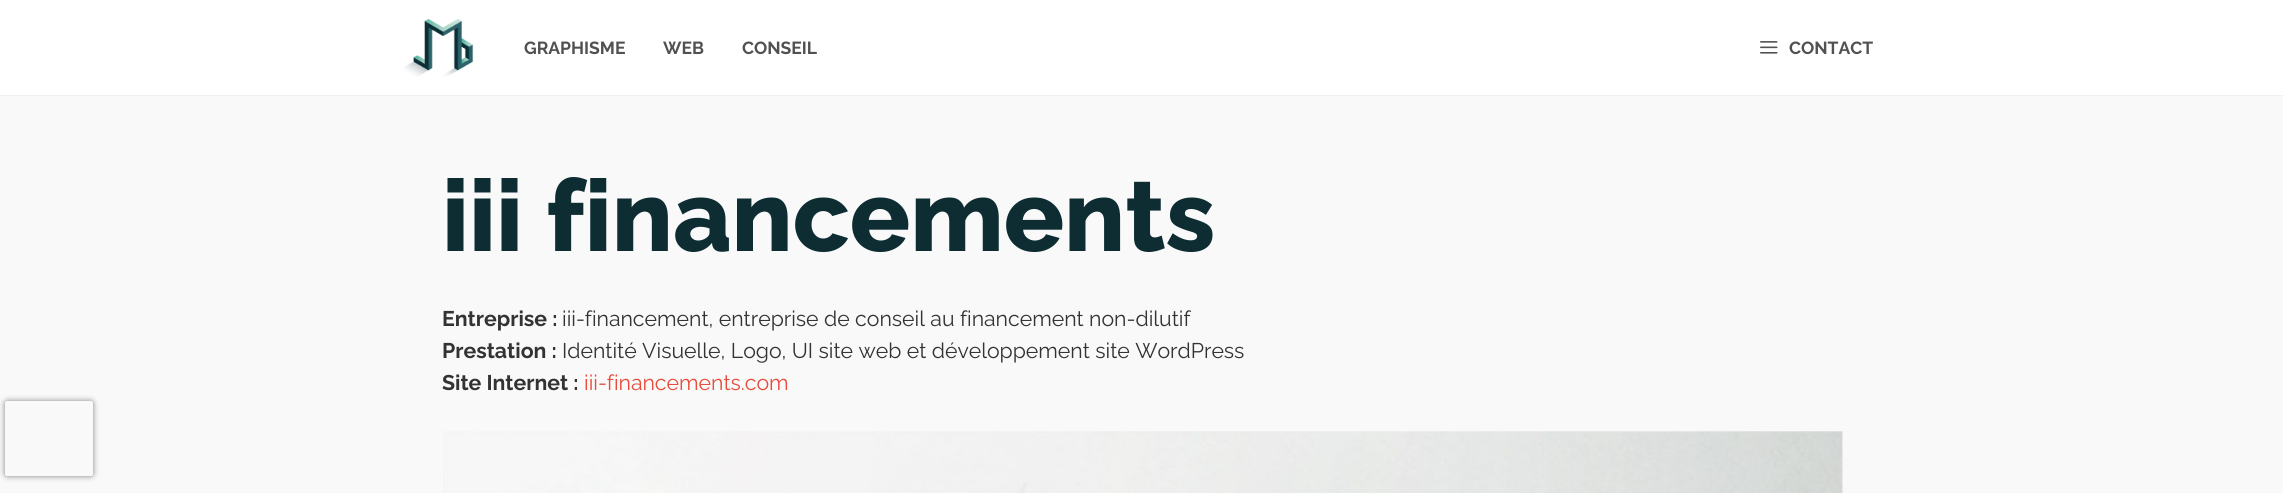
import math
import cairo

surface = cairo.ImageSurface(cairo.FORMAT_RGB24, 2283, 493)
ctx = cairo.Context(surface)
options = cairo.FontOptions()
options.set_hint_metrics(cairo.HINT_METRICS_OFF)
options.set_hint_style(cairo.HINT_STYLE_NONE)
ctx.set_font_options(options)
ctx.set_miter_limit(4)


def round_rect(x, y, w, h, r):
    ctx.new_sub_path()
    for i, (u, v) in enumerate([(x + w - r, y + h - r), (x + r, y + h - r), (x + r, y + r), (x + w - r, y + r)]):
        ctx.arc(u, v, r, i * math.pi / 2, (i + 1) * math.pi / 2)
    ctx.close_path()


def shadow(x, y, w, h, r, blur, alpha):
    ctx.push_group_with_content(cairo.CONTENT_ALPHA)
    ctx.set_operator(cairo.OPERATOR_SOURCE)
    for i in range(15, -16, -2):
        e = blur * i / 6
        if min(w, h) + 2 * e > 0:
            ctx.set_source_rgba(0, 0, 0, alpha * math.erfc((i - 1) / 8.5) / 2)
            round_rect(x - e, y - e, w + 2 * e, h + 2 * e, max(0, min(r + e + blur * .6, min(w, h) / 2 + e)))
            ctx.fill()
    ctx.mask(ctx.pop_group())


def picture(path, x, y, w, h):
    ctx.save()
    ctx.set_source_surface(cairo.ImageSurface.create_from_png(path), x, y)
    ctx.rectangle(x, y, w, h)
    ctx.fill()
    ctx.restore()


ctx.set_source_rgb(0.976, 0.976, 0.976)
ctx.paint()
ctx.set_source_rgb(1, 1, 1)
ctx.rectangle(0, 0, 2283, 95)
ctx.fill()
ctx.set_source_rgb(0.941, 0.941, 0.941)
ctx.rectangle(0, 95, 2283, 1)
ctx.fill()
picture("img1.png", 403, 18, 71, 59)
ctx.select_font_face("Raleway", cairo.FONT_SLANT_NORMAL, cairo.FONT_WEIGHT_BOLD)
ctx.set_font_size(17.5)
ctx.set_source_rgb(0.318, 0.318, 0.318)
ctx.move_to(524, 54)
ctx.show_text("GRAPHISME")
ctx.move_to(663, 54)
ctx.show_text("WEB")
ctx.move_to(742, 54)
ctx.show_text("CONSEIL")
picture("img2.png", 1760, 41, 18, 13)
ctx.move_to(1789, 54)
ctx.show_text("CONTACT")
ctx.select_font_face("Raleway ExtraBold")
ctx.set_font_size(100)
ctx.set_source_rgb(0.051, 0.176, 0.2)
ctx.move_to(442, 251)
ctx.show_text("iii financements")
ctx.select_font_face("Raleway", cairo.FONT_SLANT_NORMAL, cairo.FONT_WEIGHT_BOLD)
ctx.set_font_size(21.25)
ctx.set_source_rgb(0.2, 0.2, 0.2)
ctx.move_to(442, 326)
ctx.show_text("Entreprise :")
ctx.select_font_face("Raleway")
ctx.move_to(562, 326)
ctx.show_text("iii-financement, entreprise de conseil au financement non-dilutif")
ctx.select_font_face("Raleway", cairo.FONT_SLANT_NORMAL, cairo.FONT_WEIGHT_BOLD)
ctx.move_to(442, 358)
ctx.show_text("Prestation :")
ctx.select_font_face("Raleway")
ctx.move_to(562, 358)
ctx.show_text("Identité Visuelle, Logo, UI site web et développement site WordPress")
ctx.select_font_face("Raleway", cairo.FONT_SLANT_NORMAL, cairo.FONT_WEIGHT_BOLD)
ctx.move_to(442, 390)
ctx.show_text("Site Internet :")
ctx.select_font_face("Raleway")
ctx.set_source_rgb(0.906, 0.298, 0.235)
ctx.move_to(584, 390)
ctx.show_text("iii-financements.com")
picture("img3.png", 443, 431, 1400, 62)
ctx.save()
ctx.set_fill_rule(cairo.FILL_RULE_EVEN_ODD)
ctx.new_path()
ctx.move_to(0, 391)
ctx.line_to(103, 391)
ctx.line_to(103, 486)
ctx.line_to(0, 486)
ctx.close_path()
ctx.move_to(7.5, 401)
ctx.line_to(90.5, 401)
ctx.curve_to(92, 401, 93, 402, 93, 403.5)
ctx.line_to(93, 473.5)
ctx.curve_to(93, 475, 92, 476, 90.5, 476)
ctx.line_to(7.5, 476)
ctx.curve_to(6, 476, 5, 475, 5, 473.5)
ctx.line_to(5, 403.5)
ctx.curve_to(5, 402, 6, 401, 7.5, 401)
ctx.close_path()
ctx.clip()
ctx.set_source_rgb(0.502, 0.502, 0.502)
shadow(5, 401, 88, 75, 2.5, 3, 1)
ctx.restore()
surface.write_to_png("page.png")
